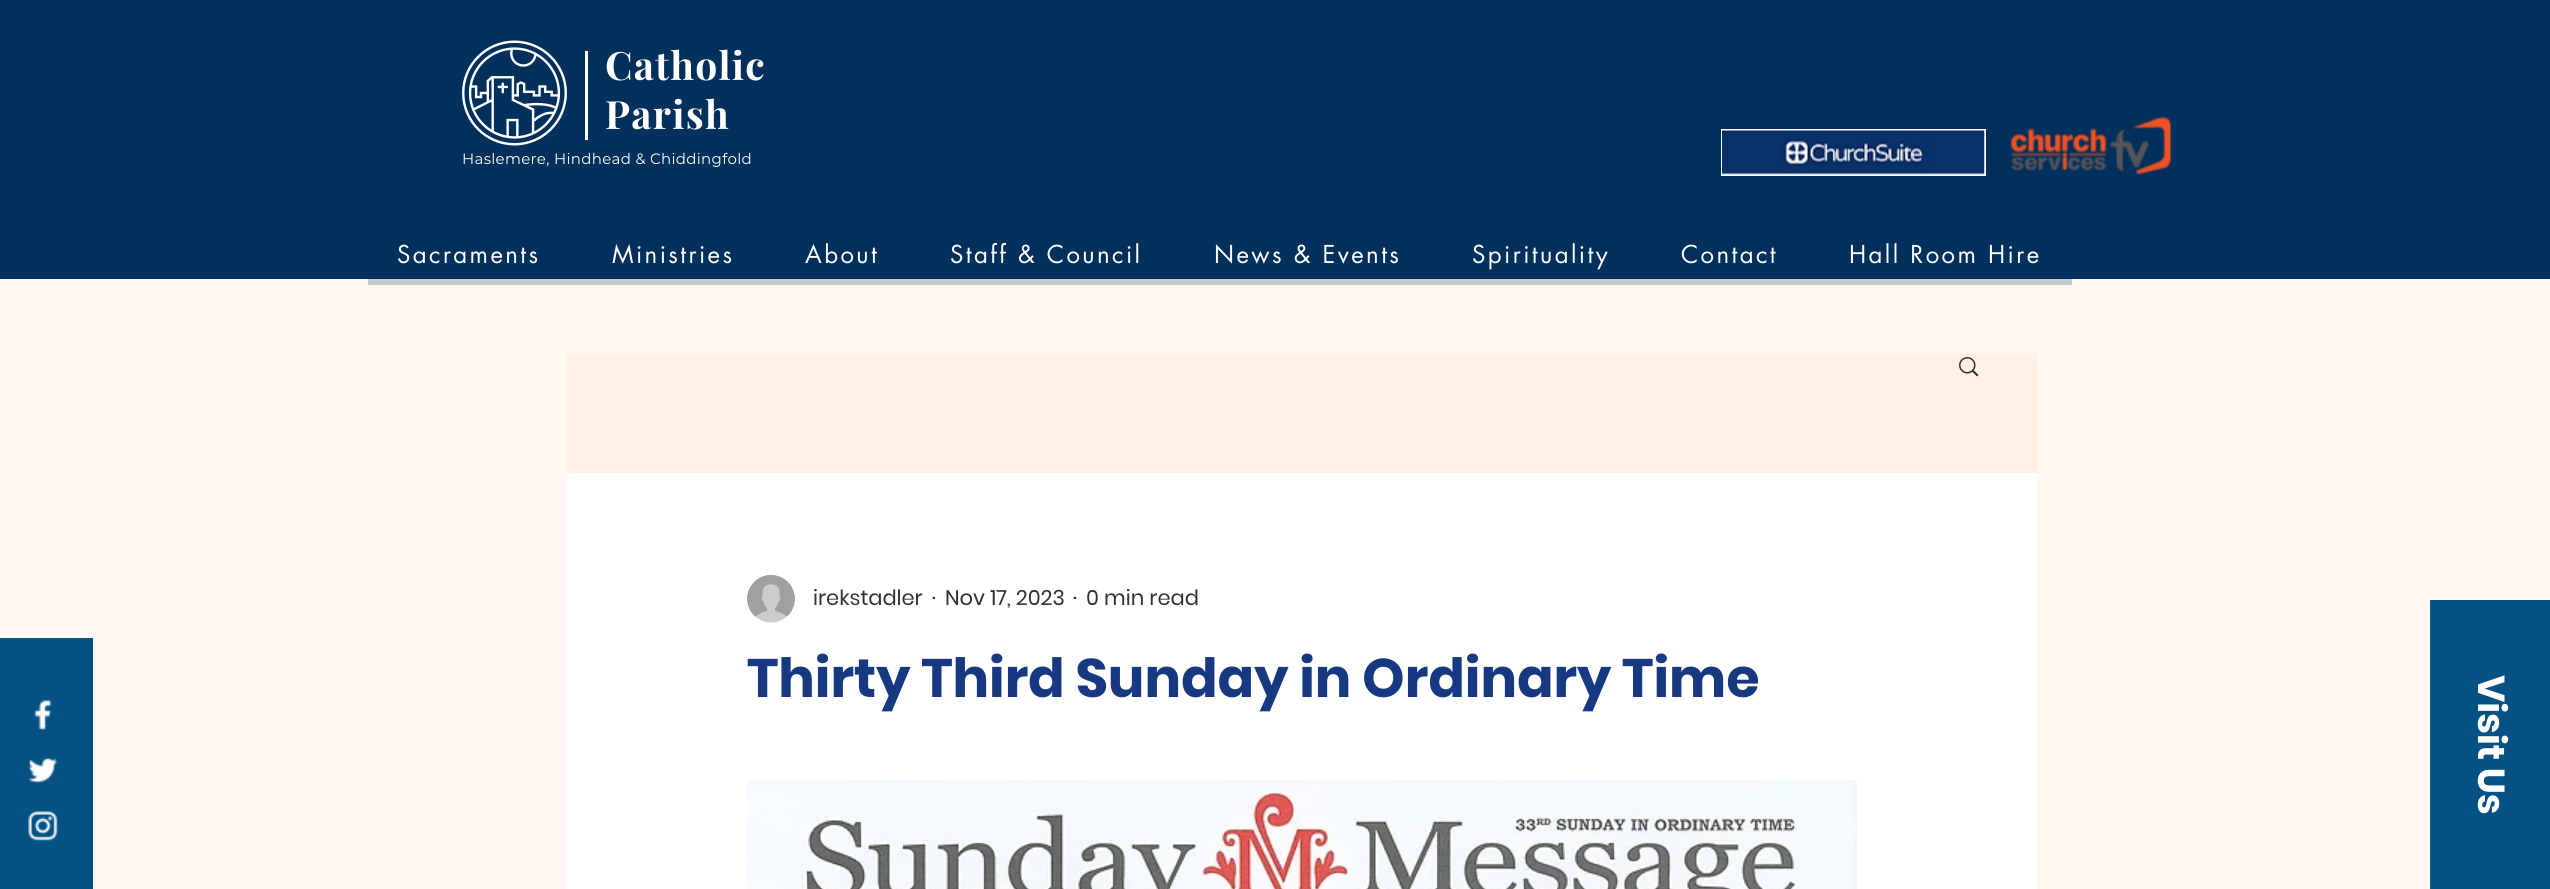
import math
import cairo

surface = cairo.ImageSurface(cairo.FORMAT_RGB24, 2550, 889)
ctx = cairo.Context(surface)
options = cairo.FontOptions()
options.set_hint_metrics(cairo.HINT_METRICS_OFF)
options.set_hint_style(cairo.HINT_STYLE_NONE)
ctx.set_font_options(options)
ctx.set_miter_limit(4)


def spaced_text(x, y, s, letter, word):
    ctx.move_to(x, y)
    for ch in s:
        ctx.show_text(ch)
        ctx.rel_move_to(letter + word * (ch == ' '), 0)


def picture(path, x, y, w, h):
    ctx.save()
    ctx.set_source_surface(cairo.ImageSurface.create_from_png(path), x, y)
    ctx.rectangle(x, y, w, h)
    ctx.fill()
    ctx.restore()


ctx.set_source_rgb(1, 0.969, 0.949)
ctx.paint()
ctx.set_source_rgb(0, 0.188, 0.357)
ctx.rectangle(0, 0, 2550, 279)
ctx.fill()
picture("img1.png", 462, 40, 105, 106)
ctx.set_source_rgb(1, 1, 1)
ctx.rectangle(585, 51, 3, 89)
ctx.fill()
ctx.select_font_face("Playfair Display", cairo.FONT_SLANT_NORMAL, cairo.FONT_WEIGHT_BOLD)
ctx.set_font_size(39)
spaced_text(605, 80, "Catholic", 1.25, 0)
spaced_text(605, 129, "Parish", 1.25, 0)
ctx.rectangle(1721, 129, 265, 47)
ctx.fill()
picture("img2.png", 1722, 130, 263, 45)
picture("img3.png", 2009, 116, 163, 59)
ctx.select_font_face("Montserrat")
ctx.set_font_size(15)
spaced_text(462, 164, "Haslemere, Hindhead & Chiddingfold", 0.3, 0)
ctx.select_font_face("futura")
ctx.set_font_size(24)
spaced_text(397, 263, "Sacraments", 2.4, 0)
spaced_text(612, 263, "Ministries", 2.4, 0)
spaced_text(805, 263, "About", 2.4, 0)
spaced_text(950, 263, "Staff & Council", 2.4, 0)
spaced_text(1214, 263, "News & Events", 2.4, 0)
spaced_text(1472, 263, "Spirituality", 2.4, 0)
spaced_text(1681, 263, "Contact", 2.4, 0)
spaced_text(1849, 263, "Hall Room Hire", 2.4, 0)
ctx.set_source_rgb(0.016, 0.318, 0.518)
ctx.rectangle(0, 638, 93, 251)
ctx.fill()
picture("img4.png", 34, 700, 18, 30)
picture("img5.png", 28, 757, 30, 27)
picture("img6.png", 28, 811, 30, 30)
ctx.set_source_rgb(1, 1, 1)
ctx.rectangle(567, 473, 1470, 416)
ctx.fill()
ctx.set_source_rgb(1, 0.941, 0.902)
ctx.rectangle(567, 353, 1470, 120)
ctx.fill()
picture("img7.png", 1959, 357, 20, 20)
picture("img8.png", 747, 575, 48, 48)
ctx.select_font_face("Poppins")
ctx.set_font_size(21)
ctx.set_source_rgb(0.2, 0.192, 0.188)
ctx.move_to(813, 605)
ctx.show_text("irekstadler")
ctx.move_to(932, 605)
ctx.show_text("·")
ctx.move_to(945, 605)
ctx.show_text("Nov 17, 2023")
ctx.move_to(1073, 605)
ctx.show_text("·")
ctx.move_to(1086, 605)
ctx.show_text("0 min read")
ctx.select_font_face("Poppins", cairo.FONT_SLANT_NORMAL, cairo.FONT_WEIGHT_BOLD)
ctx.set_font_size(54)
ctx.set_source_rgb(0.09, 0.224, 0.506)
ctx.move_to(747, 697)
ctx.show_text("Thirty Third Sunday in Ordinary Time")
picture("img9.png", 747, 780, 1110, 109)
ctx.set_source_rgb(0.016, 0.318, 0.518)
ctx.rectangle(2430, 600, 120, 289)
ctx.fill()
ctx.set_font_size(37.5)
ctx.set_source_rgb(1, 1, 1)
ctx.save()
ctx.translate(2478, 675)
ctx.rotate(90 * math.pi / 180)
ctx.move_to(0, 0)
ctx.show_text("Visit Us")
ctx.restore()
ctx.set_source_rgb(0.761, 0.78, 0.808)
ctx.rectangle(368, 279, 1704, 6)
ctx.fill()
surface.write_to_png("page.png")
